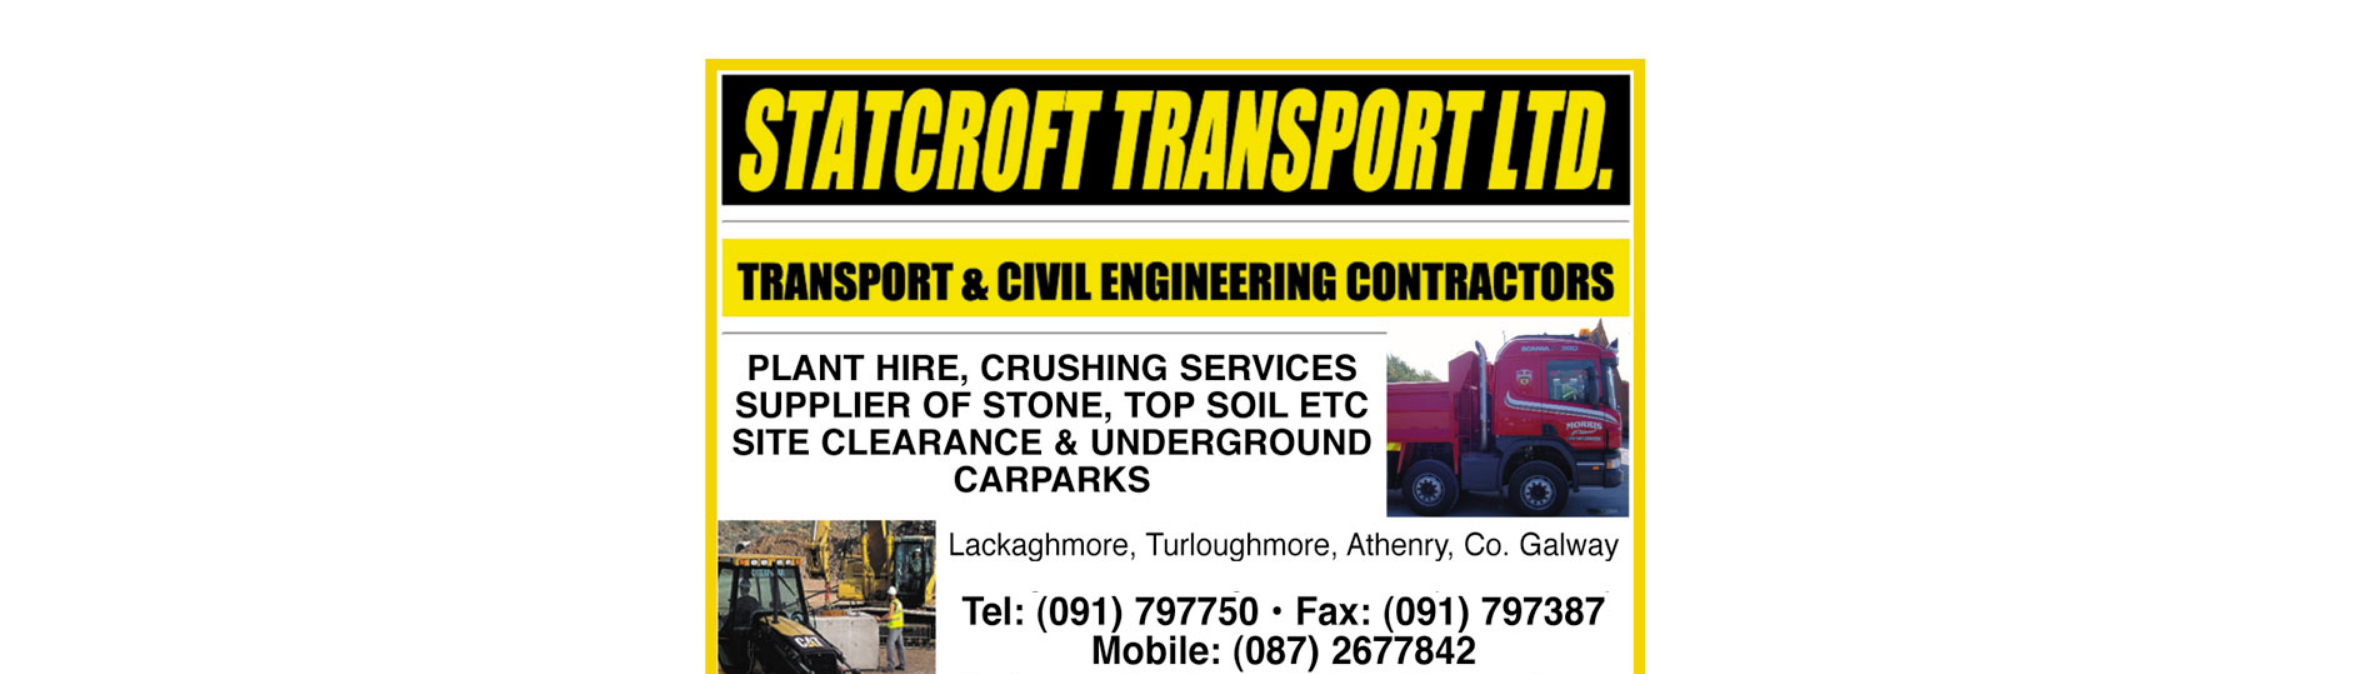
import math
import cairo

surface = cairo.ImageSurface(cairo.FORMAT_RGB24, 2360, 674)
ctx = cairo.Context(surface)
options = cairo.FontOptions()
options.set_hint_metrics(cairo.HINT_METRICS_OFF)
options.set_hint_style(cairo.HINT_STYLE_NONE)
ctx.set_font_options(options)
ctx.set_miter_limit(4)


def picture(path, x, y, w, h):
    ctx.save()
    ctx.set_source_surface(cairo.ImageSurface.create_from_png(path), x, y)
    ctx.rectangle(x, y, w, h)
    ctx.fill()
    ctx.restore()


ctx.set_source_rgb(1, 1, 1)
ctx.paint()
picture("img1.png", 700, 52, 950, 622)
surface.write_to_png("page.png")
